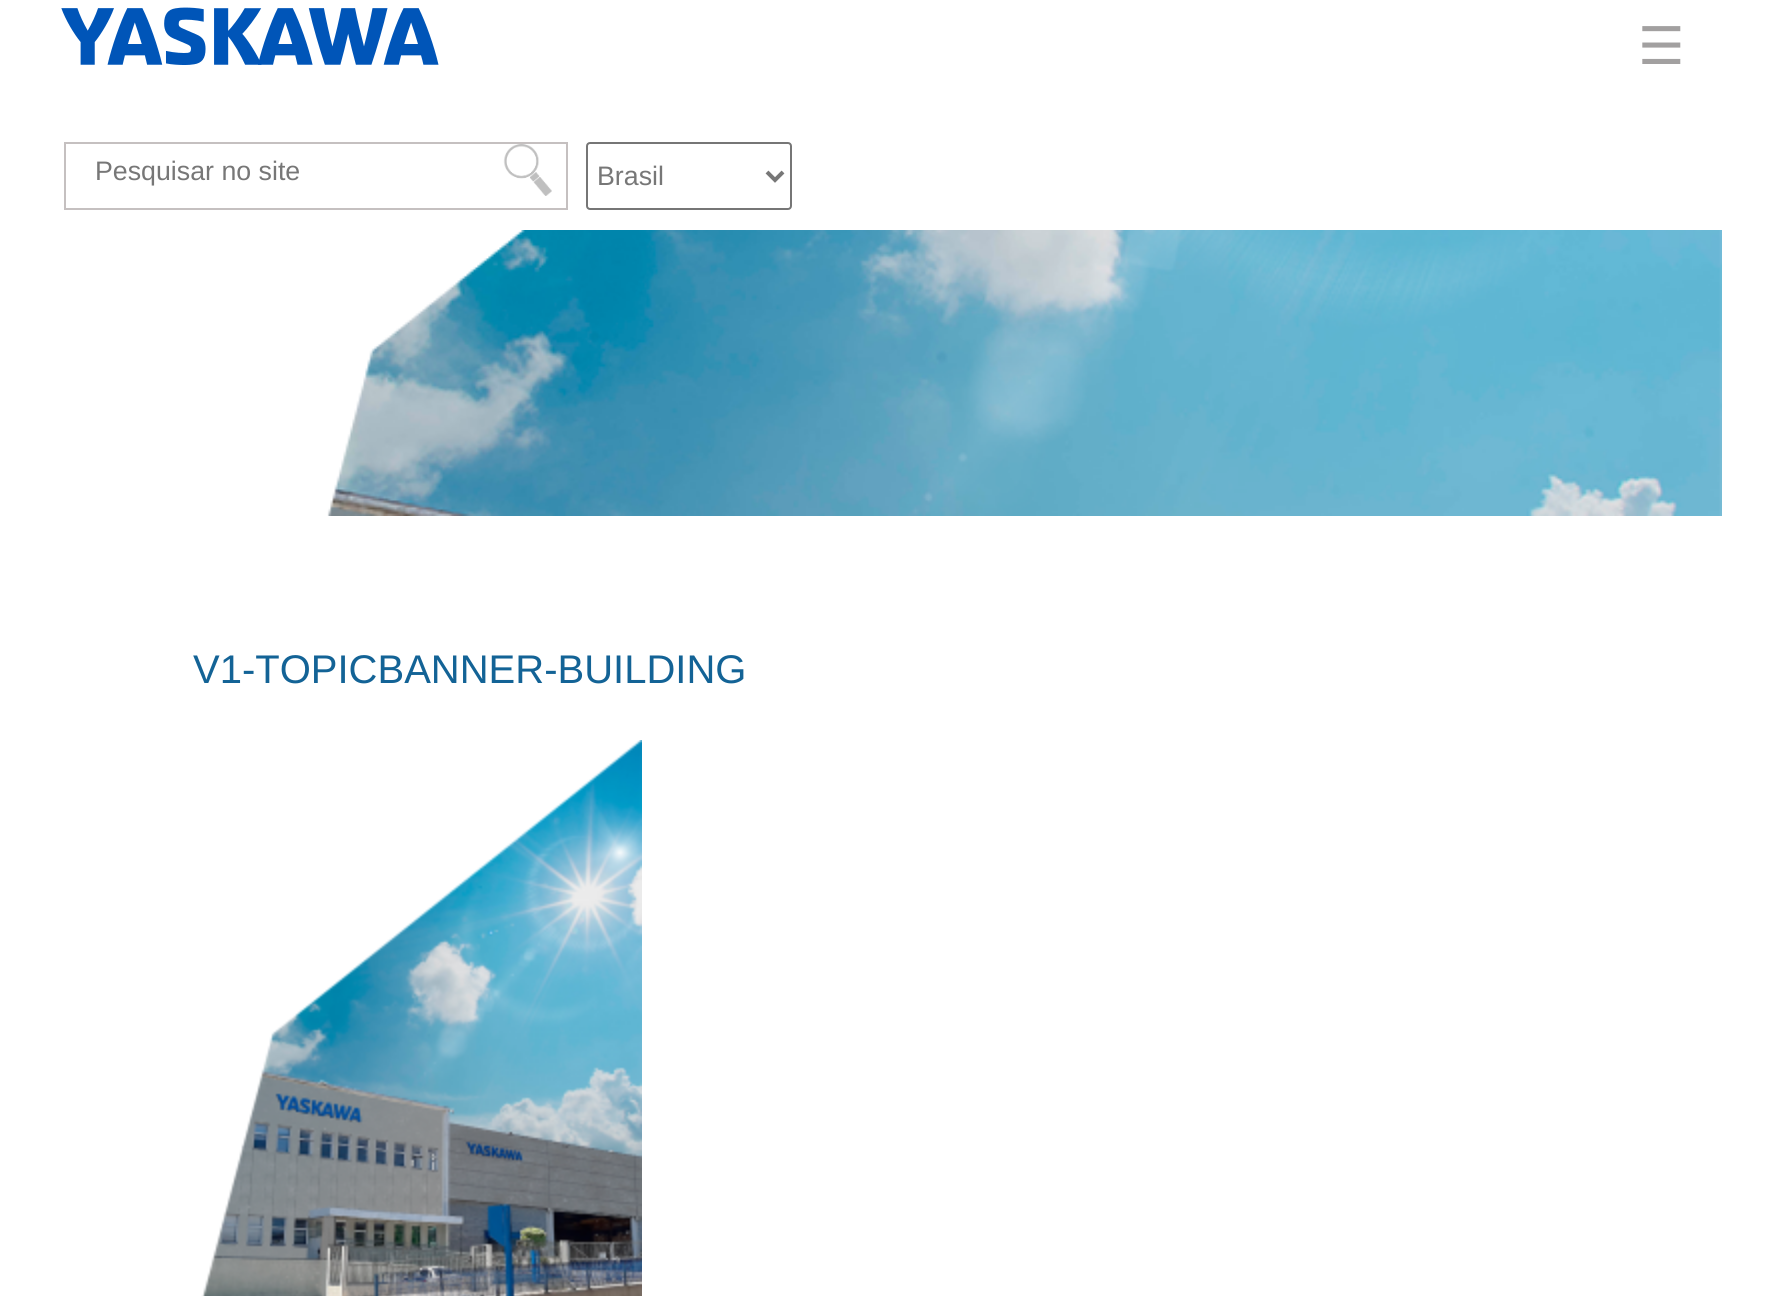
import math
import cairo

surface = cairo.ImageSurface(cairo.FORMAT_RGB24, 1778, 1296)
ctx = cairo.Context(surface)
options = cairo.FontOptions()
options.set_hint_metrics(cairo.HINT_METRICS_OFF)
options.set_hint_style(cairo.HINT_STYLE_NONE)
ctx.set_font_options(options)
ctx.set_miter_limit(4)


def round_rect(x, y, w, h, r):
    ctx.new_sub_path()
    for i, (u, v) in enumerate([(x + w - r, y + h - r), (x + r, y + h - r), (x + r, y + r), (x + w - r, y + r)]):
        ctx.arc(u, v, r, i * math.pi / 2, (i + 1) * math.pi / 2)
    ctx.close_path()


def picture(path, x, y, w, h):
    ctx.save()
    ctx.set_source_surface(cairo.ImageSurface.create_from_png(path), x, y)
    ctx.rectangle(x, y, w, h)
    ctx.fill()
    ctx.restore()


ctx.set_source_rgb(1, 1, 1)
ctx.paint()
picture("img1.png", 61, 7, 378, 58)
ctx.select_font_face("DejaVu Sans")
ctx.set_font_size(52)
ctx.set_source_rgb(0.635, 0.627, 0.627)
ctx.move_to(1638, 64)
ctx.show_text("☰")
ctx.rectangle(65, 143, 502, 66)
ctx.set_source_rgb(0.773, 0.753, 0.753)
ctx.stroke()
ctx.select_font_face("Liberation Sans")
ctx.set_font_size(26.75)
ctx.set_source_rgb(0.467, 0.467, 0.467)
ctx.move_to(95, 180)
ctx.show_text("Pesquisar no site")
picture("img2.png", 503, 144, 49, 52)
round_rect(587, 143, 204, 66, 3)
ctx.set_source_rgb(0.463, 0.463, 0.463)
ctx.stroke()
ctx.new_path()
ctx.move_to(767, 172)
ctx.line_to(775, 180)
ctx.line_to(783, 172)
ctx.set_source_rgb(0.467, 0.467, 0.467)
ctx.set_line_width(4)
ctx.stroke()
ctx.move_to(597, 185)
ctx.show_text("Brasil")
picture("img3.png", 327, 230, 1395, 286)
ctx.set_font_size(40)
ctx.set_source_rgb(0.075, 0.388, 0.588)
ctx.move_to(193, 683)
ctx.show_text("V1-TOPICBANNER-BUILDING")
picture("img4.png", 201, 740, 441, 556)
surface.write_to_png("page.png")
